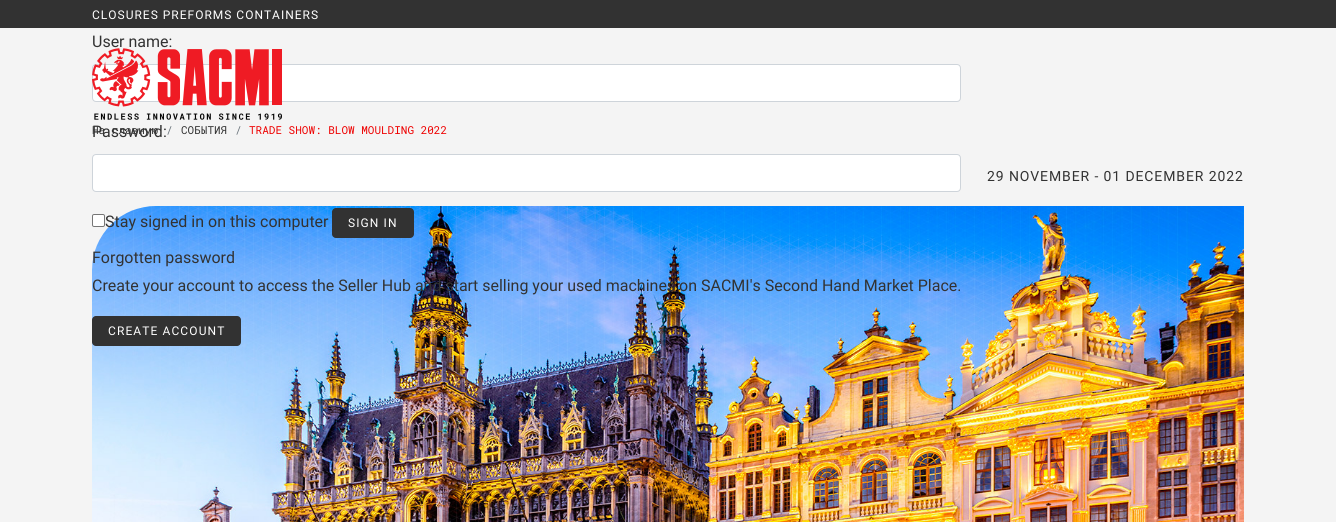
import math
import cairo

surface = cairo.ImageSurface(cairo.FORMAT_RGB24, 1336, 522)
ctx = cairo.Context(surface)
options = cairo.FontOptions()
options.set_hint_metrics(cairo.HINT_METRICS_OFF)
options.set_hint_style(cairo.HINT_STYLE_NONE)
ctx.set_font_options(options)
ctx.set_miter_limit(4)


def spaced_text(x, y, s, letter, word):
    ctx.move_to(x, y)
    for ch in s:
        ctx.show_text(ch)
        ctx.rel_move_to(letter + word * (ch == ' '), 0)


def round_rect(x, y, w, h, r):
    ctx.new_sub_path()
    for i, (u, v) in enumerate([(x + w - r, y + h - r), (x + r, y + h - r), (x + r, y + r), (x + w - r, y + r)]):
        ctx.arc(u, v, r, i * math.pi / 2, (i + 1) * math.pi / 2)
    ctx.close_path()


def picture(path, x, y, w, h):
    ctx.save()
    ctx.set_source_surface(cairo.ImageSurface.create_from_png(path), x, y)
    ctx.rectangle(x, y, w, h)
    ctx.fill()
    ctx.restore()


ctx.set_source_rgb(0.957, 0.957, 0.957)
ctx.paint()
ctx.set_source_rgb(0.196, 0.196, 0.196)
ctx.rectangle(0, 0, 1336, 28)
ctx.fill()
ctx.select_font_face("Roboto")
ctx.set_font_size(12)
ctx.set_source_rgb(1, 1, 1)
spaced_text(92, 19, "CLOSURES PREFORMS CONTAINERS", 1, 0)
ctx.set_font_size(16)
ctx.set_source_rgb(0.196, 0.196, 0.196)
ctx.move_to(92, 47)
ctx.show_text("User name:")
ctx.set_source_rgb(1, 1, 1)
round_rect(92.5, 64.5, 868, 37, 3.5)
ctx.fill_preserve()
ctx.set_source_rgb(0.808, 0.831, 0.855)
ctx.set_line_width(1)
ctx.stroke()
ctx.select_font_face("Roboto Mono")
ctx.set_font_size(11)
ctx.set_source_rgb(0.196, 0.196, 0.196)
ctx.move_to(92, 134)
ctx.show_text("На главную")
ctx.select_font_face("Roboto")
ctx.set_font_size(16)
ctx.move_to(92, 137)
ctx.show_text("Password:")
ctx.set_source_rgb(1, 1, 1)
round_rect(92.5, 154.5, 868, 37, 3.5)
ctx.fill_preserve()
ctx.set_source_rgb(0.808, 0.831, 0.855)
ctx.stroke()
picture("img2.png", 92, 206, 1152, 316)
ctx.set_source_rgb(1, 1, 1)
round_rect(92.5, 214.5, 12, 12, 1.5)
ctx.fill_preserve()
ctx.set_source_rgb(0.463, 0.463, 0.463)
ctx.stroke()
ctx.set_source_rgb(0.196, 0.196, 0.196)
ctx.move_to(105, 227)
ctx.show_text("Stay signed in on this computer")
round_rect(332, 208, 82, 30, 4)
ctx.fill()
ctx.set_font_size(12)
ctx.set_source_rgb(1, 1, 1)
spaced_text(348, 227, "SIGN IN", 1.1, 0)
ctx.set_font_size(16)
ctx.set_source_rgb(0.196, 0.196, 0.196)
ctx.move_to(92, 263)
ctx.show_text("Forgotten password")
ctx.move_to(92, 291)
ctx.show_text("Create your account to access the Seller Hub and start selling your used machines on SACMI's Second Hand Market Place.")
round_rect(92, 316, 149, 30, 4)
ctx.fill()
ctx.set_font_size(12)
ctx.set_source_rgb(1, 1, 1)
spaced_text(108, 335, "CREATE ACCOUNT", 1.1, 0)
picture("img1.png", 92, 48, 190, 72)
ctx.select_font_face("Roboto Mono")
ctx.set_font_size(11)
ctx.set_source_rgb(0.424, 0.459, 0.49)
ctx.move_to(166, 134)
ctx.show_text("/")
ctx.set_source_rgb(0.196, 0.196, 0.196)
ctx.move_to(181, 134)
ctx.show_text("СОБЫТИЯ")
ctx.set_source_rgb(0.424, 0.459, 0.49)
ctx.move_to(235, 134)
ctx.show_text("/")
ctx.set_source_rgb(0.933, 0, 0)
ctx.move_to(249, 134)
ctx.show_text("TRADE SHOW: BLOW MOULDING 2022")
ctx.select_font_face("Roboto")
ctx.set_font_size(14)
ctx.set_source_rgb(0.196, 0.196, 0.196)
spaced_text(987, 181, "29 NOVEMBER - 01 DECEMBER 2022", 0.9, 0)
surface.write_to_png("page.png")
